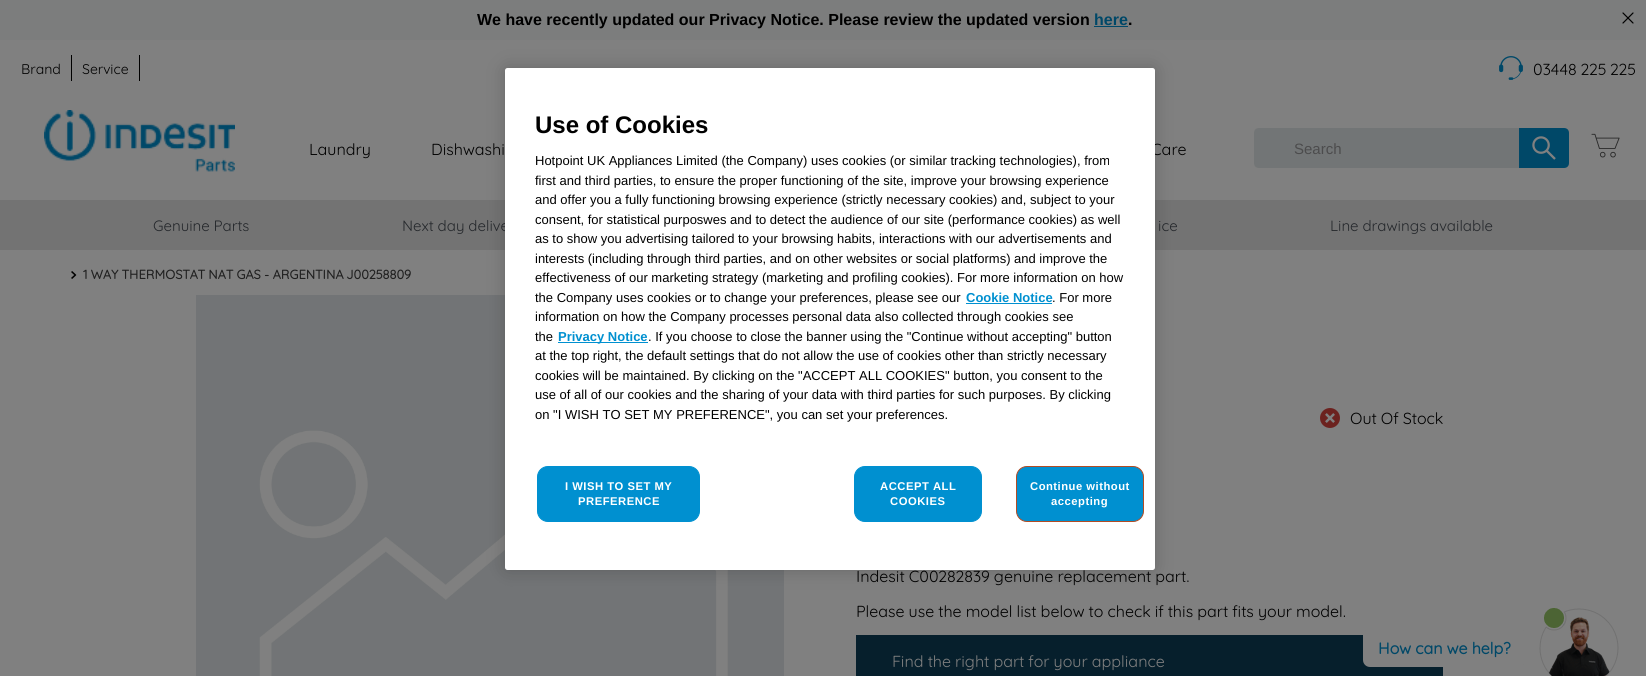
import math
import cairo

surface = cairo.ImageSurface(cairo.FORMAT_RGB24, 1646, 676)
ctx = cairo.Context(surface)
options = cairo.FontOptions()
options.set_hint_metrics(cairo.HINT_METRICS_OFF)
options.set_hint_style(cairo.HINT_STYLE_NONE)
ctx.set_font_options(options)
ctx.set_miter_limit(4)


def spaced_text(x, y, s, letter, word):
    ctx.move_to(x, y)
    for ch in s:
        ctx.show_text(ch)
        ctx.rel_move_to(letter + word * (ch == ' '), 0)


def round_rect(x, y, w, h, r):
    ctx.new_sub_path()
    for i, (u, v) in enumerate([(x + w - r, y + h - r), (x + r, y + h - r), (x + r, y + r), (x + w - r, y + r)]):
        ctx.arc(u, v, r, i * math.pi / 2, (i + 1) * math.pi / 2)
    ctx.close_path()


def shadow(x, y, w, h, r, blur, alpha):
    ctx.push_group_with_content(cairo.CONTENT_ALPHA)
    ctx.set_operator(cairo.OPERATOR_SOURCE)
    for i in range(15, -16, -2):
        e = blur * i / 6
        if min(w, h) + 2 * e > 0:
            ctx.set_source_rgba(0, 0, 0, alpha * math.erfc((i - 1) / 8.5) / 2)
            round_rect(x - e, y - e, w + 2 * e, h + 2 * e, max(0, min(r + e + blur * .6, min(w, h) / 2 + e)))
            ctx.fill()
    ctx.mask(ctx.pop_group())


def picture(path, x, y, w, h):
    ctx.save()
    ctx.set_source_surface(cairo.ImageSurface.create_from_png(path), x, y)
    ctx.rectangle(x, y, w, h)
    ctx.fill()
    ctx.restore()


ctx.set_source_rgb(0.502, 0.502, 0.502)
ctx.paint()
ctx.set_source_rgb(0.486, 0.49, 0.49)
ctx.rectangle(0, 0, 1646, 40)
ctx.fill()
ctx.select_font_face("Liberation Sans", cairo.FONT_SLANT_NORMAL, cairo.FONT_WEIGHT_BOLD)
ctx.set_font_size(16)
ctx.set_source_rgb(0, 0, 0)
ctx.move_to(477, 25)
ctx.show_text("We have recently updated our Privacy Notice. Please review the updated version")
ctx.set_source_rgb(0, 0.282, 0.408)
ctx.move_to(1094, 25)
ctx.show_text("here")
ctx.set_source_rgb(0, 0, 0)
ctx.move_to(1128, 25)
ctx.show_text(".")
ctx.set_source_rgb(0, 0.282, 0.408)
ctx.rectangle(1094, 26, 34, 1)
ctx.fill()
picture("img1.png", 1622, 12, 12, 12)
ctx.set_source_rgb(0, 0, 0)
ctx.rectangle(71, 55, 1, 26)
ctx.fill()
ctx.select_font_face("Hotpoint")
ctx.set_font_size(14)
ctx.move_to(21, 74)
ctx.show_text("Brand")
ctx.rectangle(139, 55, 1, 26)
ctx.fill()
ctx.move_to(82, 74)
ctx.show_text("Service")
picture("img2.png", 1499, 56, 24, 24)
ctx.set_font_size(16)
ctx.move_to(1533, 75)
ctx.show_text("03448 225 225")
picture("img3.png", 44, 110, 191, 62)
ctx.move_to(309, 155)
ctx.show_text("Laundry")
ctx.move_to(431, 155)
ctx.show_text("Dishwashi")
ctx.move_to(1151, 155)
ctx.show_text("Care")
ctx.set_source_rgb(0.447, 0.459, 0.463)
ctx.new_path()
ctx.move_to(1259, 128)
ctx.line_to(1519, 128)
ctx.line_to(1519, 168)
ctx.line_to(1259, 168)
ctx.curve_to(1256, 168, 1254, 166, 1254, 163)
ctx.line_to(1254, 133)
ctx.curve_to(1254, 130, 1256, 128, 1259, 128)
ctx.close_path()
ctx.fill()
ctx.select_font_face("Liberation Sans")
ctx.set_font_size(15)
ctx.set_source_rgb(0.298, 0.298, 0.302)
ctx.move_to(1294, 154)
ctx.show_text("Search")
ctx.set_source_rgb(0, 0.282, 0.408)
ctx.new_path()
ctx.move_to(1519, 128)
ctx.line_to(1564, 128)
ctx.curve_to(1567, 128, 1569, 130, 1569, 133)
ctx.line_to(1569, 163)
ctx.curve_to(1569, 166, 1567, 168, 1564, 168)
ctx.line_to(1519, 168)
ctx.close_path()
ctx.fill()
picture("img4.png", 1532, 136, 24, 24)
picture("img5.png", 1591, 133, 29, 25)
ctx.set_source_rgb(0.451, 0.451, 0.451)
ctx.rectangle(0, 200, 1646, 50)
ctx.fill()
ctx.select_font_face("Hotpoint")
ctx.set_source_rgb(0.145, 0.157, 0.173)
ctx.move_to(153, 231)
ctx.show_text("Genuine Parts")
ctx.move_to(402, 231)
ctx.show_text("Next day delive")
ctx.move_to(1158, 231)
ctx.show_text("ice")
ctx.move_to(1330, 231)
ctx.show_text("Line drawings available")
picture("img6.png", 71, 271, 6, 8)
ctx.select_font_face("Hotpoint", cairo.FONT_SLANT_NORMAL, cairo.FONT_WEIGHT_BOLD)
ctx.set_font_size(12.8)
ctx.set_source_rgb(0.125, 0.125, 0.125)
ctx.move_to(83, 279)
ctx.show_text("1 WAY THERMOSTAT NAT GAS - ARGENTINA J00258809")
picture("img7.png", 196, 295, 588, 381)
picture("img8.png", 1320, 408, 20, 20)
ctx.select_font_face("Hotpoint")
ctx.set_font_size(16)
ctx.set_source_rgb(0, 0, 0)
ctx.move_to(1350, 424)
ctx.show_text("Out Of Stock")
ctx.move_to(856, 582)
ctx.show_text("Indesit C00282839 genuine replacement part.")
ctx.move_to(856, 617)
ctx.show_text("Please use the model list below to check if this part fits your model.")
ctx.set_source_rgb(0.024, 0.122, 0.173)
ctx.rectangle(856, 635, 587, 41)
ctx.fill()
ctx.set_source_rgb(0.502, 0.502, 0.502)
ctx.move_to(892, 667)
ctx.show_text("Find the right part for your appliance")
ctx.set_source_rgb(0, 0, 0)
shadow(505, 68, 650, 502, 2.5, 9, 0.2)
ctx.set_source_rgb(1, 1, 1)
round_rect(505, 68, 650, 502, 2.5)
ctx.fill()
ctx.select_font_face("Liberation Sans", cairo.FONT_SLANT_NORMAL, cairo.FONT_WEIGHT_BOLD)
ctx.set_font_size(24)
ctx.set_source_rgb(0, 0, 0)
ctx.move_to(535, 133)
ctx.show_text("Use of Cookies")
ctx.select_font_face("Liberation Sans")
ctx.set_font_size(13)
ctx.move_to(535, 165)
ctx.show_text("Hotpoint UK Appliances Limited (the Company) uses cookies (or similar tracking technologies), from")
ctx.move_to(535, 185)
ctx.show_text("first and third parties, to ensure the proper functioning of the site, improve your browsing experience")
ctx.move_to(535, 204)
ctx.show_text("and offer you a fully functioning browsing experience (strictly necessary cookies) and, subject to your")
ctx.move_to(535, 224)
ctx.show_text("consent, for statistical purposwes and to detect the audience of our site (performance cookies) as well")
ctx.move_to(535, 243)
ctx.show_text("as to show you advertising tailored to your browsing habits, interactions with our advertisements and")
ctx.move_to(535, 263)
ctx.show_text("interests (including through third parties, and on other websites or social platforms) and improve the")
ctx.move_to(535, 282)
ctx.show_text("effectiveness of our marketing strategy (marketing and profiling cookies). For more information on how")
ctx.move_to(535, 302)
ctx.show_text("the Company uses cookies or to change your preferences, please see our")
ctx.select_font_face("Liberation Sans", cairo.FONT_SLANT_NORMAL, cairo.FONT_WEIGHT_BOLD)
ctx.set_source_rgb(0, 0.565, 0.816)
ctx.move_to(966, 302)
ctx.show_text("Cookie Notice")
ctx.rectangle(966, 303, 86, 1)
ctx.fill()
ctx.select_font_face("Liberation Sans")
ctx.set_source_rgb(0, 0, 0)
ctx.move_to(1052, 302)
ctx.show_text(". For more")
ctx.move_to(535, 321)
ctx.show_text("information on how the Company processes personal data also collected through cookies see")
ctx.move_to(535, 341)
ctx.show_text("the")
ctx.set_source_rgb(0, 0.565, 0.816)
ctx.rectangle(558, 342, 90, 1)
ctx.fill()
ctx.select_font_face("Liberation Sans", cairo.FONT_SLANT_NORMAL, cairo.FONT_WEIGHT_BOLD)
ctx.move_to(558, 341)
ctx.show_text("Privacy Notice")
ctx.select_font_face("Liberation Sans")
ctx.set_source_rgb(0, 0, 0)
ctx.move_to(648, 341)
ctx.show_text(". If you choose to close the banner using the \"Continue without accepting\" button")
ctx.move_to(535, 360)
ctx.show_text("at the top right, the default settings that do not allow the use of cookies other than strictly necessary")
ctx.move_to(535, 380)
ctx.show_text("cookies will be maintained. By clicking on the \"ACCEPT ALL COOKIES\" button, you consent to the")
ctx.move_to(535, 399)
ctx.show_text("use of all of our cookies and the sharing of your data with third parties for such purposes. By clicking")
ctx.move_to(535, 419)
ctx.show_text("on \"I WISH TO SET MY PREFERENCE\", you can set your preferences.")
ctx.set_source_rgb(0, 0.565, 0.816)
round_rect(537.5, 466.5, 162, 55, 10.5)
ctx.fill_preserve()
ctx.set_line_width(1)
ctx.stroke()
ctx.select_font_face("Liberation Sans", cairo.FONT_SLANT_NORMAL, cairo.FONT_WEIGHT_BOLD)
ctx.set_font_size(11.25)
ctx.set_source_rgb(1, 1, 1)
spaced_text(565, 490, "I WISH TO SET MY", 0.5, 0)
spaced_text(578, 505, "PREFERENCE", 0.5, 0)
ctx.set_source_rgb(0, 0.565, 0.816)
round_rect(854.5, 466.5, 127, 55, 10.5)
ctx.fill_preserve()
ctx.stroke()
ctx.set_source_rgb(1, 1, 1)
spaced_text(880, 490, "ACCEPT ALL", 0.5, 0)
spaced_text(890, 505, "COOKIES", 0.5, 0)
ctx.set_source_rgb(0, 0.565, 0.816)
round_rect(1016.5, 466.5, 127, 55, 10.5)
ctx.fill_preserve()
ctx.set_source_rgb(0.698, 0.298, 0.141)
ctx.stroke()
ctx.set_source_rgb(1, 1, 1)
spaced_text(1030, 490, "Continue without", 0.5, 0)
spaced_text(1051, 505, "accepting", 0.5, 0)
ctx.set_source_rgb(0.502, 0.502, 0.502)
round_rect(1363, 628, 163, 39, 7)
ctx.fill()
ctx.select_font_face("Hotpoint", cairo.FONT_SLANT_NORMAL, cairo.FONT_WEIGHT_BOLD)
ctx.set_font_size(16)
ctx.set_source_rgb(0, 0.282, 0.408)
ctx.move_to(1378, 654)
ctx.show_text("How can we help?")
picture("img9.png", 1539, 608, 80, 68)
surface.write_to_png("page.png")
